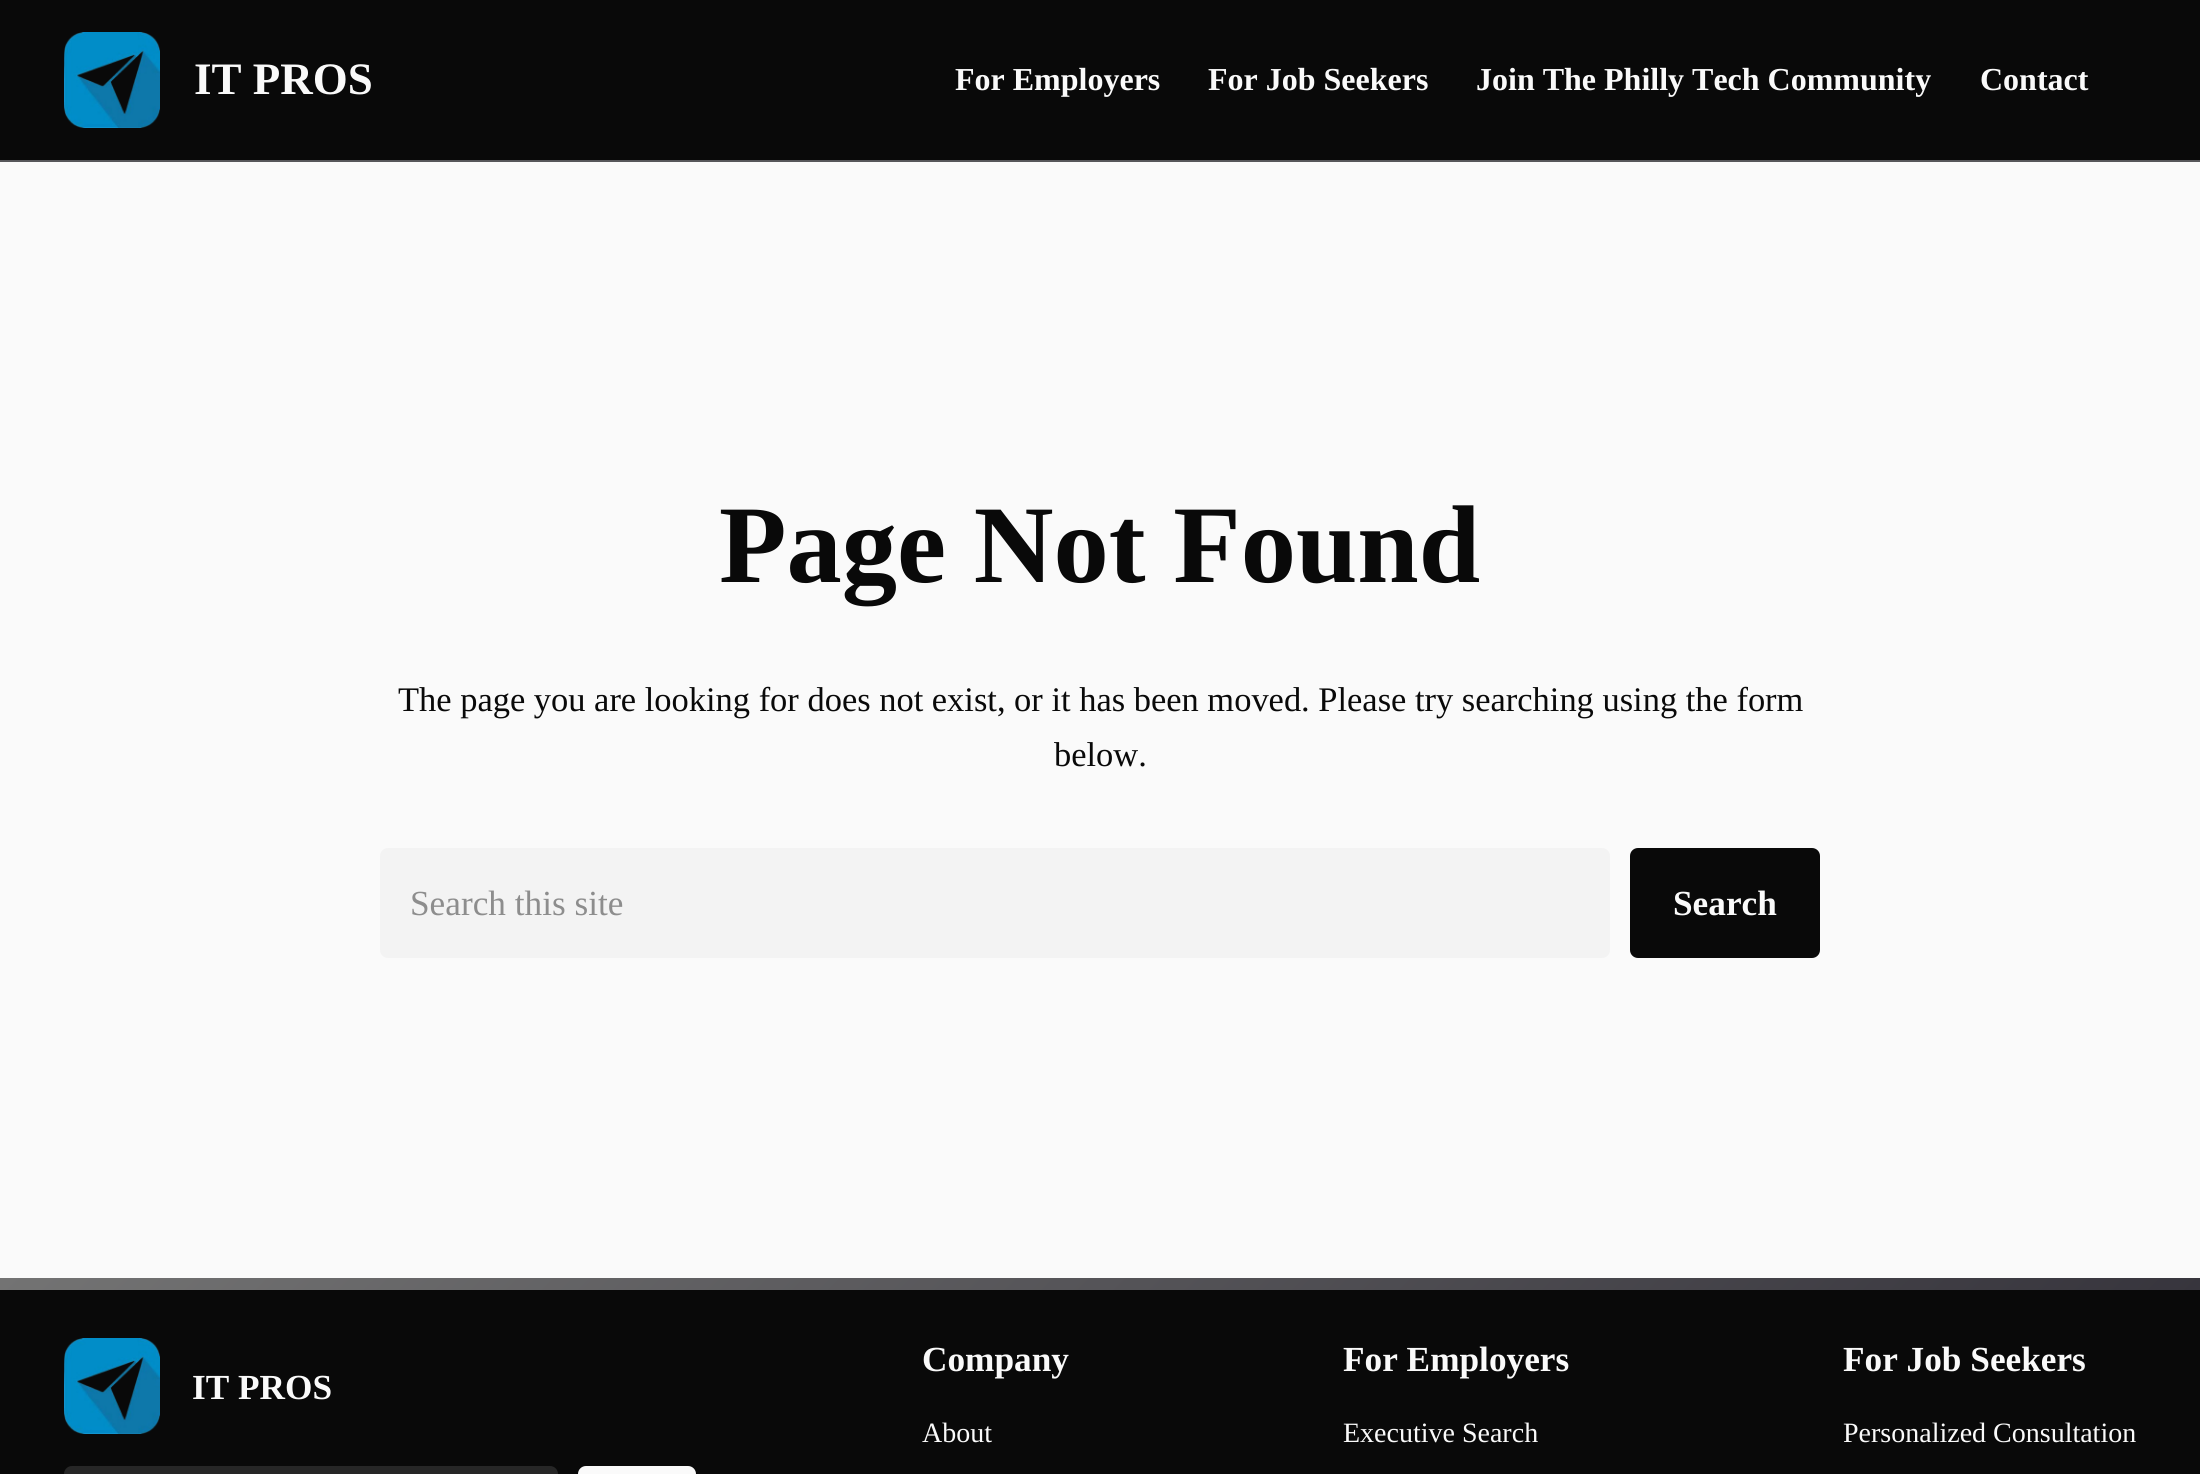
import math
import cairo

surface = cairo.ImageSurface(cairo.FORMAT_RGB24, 2200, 1474)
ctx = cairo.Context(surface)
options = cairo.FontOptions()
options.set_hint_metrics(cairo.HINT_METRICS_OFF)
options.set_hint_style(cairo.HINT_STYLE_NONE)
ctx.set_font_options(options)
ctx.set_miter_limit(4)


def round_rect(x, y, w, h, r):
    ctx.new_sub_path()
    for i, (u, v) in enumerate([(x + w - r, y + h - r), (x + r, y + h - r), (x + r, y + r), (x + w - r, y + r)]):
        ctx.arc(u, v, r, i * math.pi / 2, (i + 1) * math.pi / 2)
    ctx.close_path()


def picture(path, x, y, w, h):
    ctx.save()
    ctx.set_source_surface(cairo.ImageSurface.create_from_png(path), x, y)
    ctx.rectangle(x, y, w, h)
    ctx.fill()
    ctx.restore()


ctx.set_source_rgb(0.98, 0.98, 0.98)
ctx.paint()
ctx.set_source_rgb(0.039, 0.039, 0.039)
ctx.rectangle(0, 0, 2200, 160)
ctx.fill()
ctx.set_source_rgb(0.341, 0.341, 0.353)
ctx.rectangle(0, 160, 2200, 2)
ctx.fill()
picture("img1.png", 64, 32, 96, 96)
ctx.select_font_face("Liberation Serif", cairo.FONT_SLANT_NORMAL, cairo.FONT_WEIGHT_BOLD)
ctx.set_font_size(45)
ctx.set_source_rgb(0.98, 0.98, 0.98)
ctx.move_to(194, 94)
ctx.show_text("IT PROS")
ctx.set_font_size(32)
ctx.move_to(955, 90)
ctx.show_text("For Employers")
ctx.move_to(1208, 90)
ctx.show_text("For Job Seekers")
ctx.move_to(1476, 90)
ctx.show_text("Join The Philly Tech Community")
ctx.move_to(1980, 90)
ctx.show_text("Contact")
ctx.set_font_size(110.5)
ctx.set_source_rgb(0.039, 0.039, 0.039)
ctx.move_to(719, 582)
ctx.show_text("Page Not Found")
ctx.select_font_face("Liberation Serif")
ctx.set_font_size(34.45)
ctx.move_to(398, 711)
ctx.show_text("The page you are looking for does not exist, or it has been moved. Please try searching using the form")
ctx.move_to(1054, 766)
ctx.show_text("below.")
ctx.set_source_rgb(0.953, 0.953, 0.953)
round_rect(380, 848, 1230, 110, 8)
ctx.fill()
ctx.set_font_size(35.25)
ctx.set_source_rgb(0.553, 0.553, 0.553)
ctx.move_to(410, 915)
ctx.show_text("Search this site")
ctx.set_source_rgb(0.039, 0.039, 0.039)
round_rect(1630, 848, 190, 110, 8)
ctx.fill()
ctx.select_font_face("Liberation Serif", cairo.FONT_SLANT_NORMAL, cairo.FONT_WEIGHT_BOLD)
ctx.set_source_rgb(0.98, 0.98, 0.98)
ctx.move_to(1673, 915)
ctx.show_text("Search")
ctx.set_source_rgb(0.039, 0.039, 0.039)
ctx.rectangle(0, 1290, 2200, 184)
ctx.fill()
gradient = cairo.LinearGradient(547, 731, 1653, 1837)
gradient.add_color_stop_rgba(0, 0.451, 0.451, 0.451, 1)
gradient.add_color_stop_rgba(1, 0.216, 0.208, 0.239, 1)
ctx.set_source(gradient)
ctx.rectangle(0, 1278, 2200, 12)
ctx.fill()
picture("img2.png", 64, 1338, 96, 96)
ctx.set_source_rgb(0.98, 0.98, 0.98)
ctx.move_to(192, 1399)
ctx.show_text("IT PROS")
ctx.set_source_rgb(0.149, 0.149, 0.149)
round_rect(64, 1466, 494, 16, 8)
ctx.fill()
ctx.set_source_rgb(0.98, 0.98, 0.98)
round_rect(578, 1466, 118, 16, 8)
ctx.fill()
ctx.move_to(922, 1371)
ctx.show_text("Company")
ctx.select_font_face("Liberation Serif")
ctx.set_font_size(28)
ctx.move_to(922, 1442)
ctx.show_text("About")
ctx.select_font_face("Liberation Serif", cairo.FONT_SLANT_NORMAL, cairo.FONT_WEIGHT_BOLD)
ctx.set_font_size(35.25)
ctx.move_to(1343, 1371)
ctx.show_text("For Employers")
ctx.select_font_face("Liberation Serif")
ctx.set_font_size(28)
ctx.move_to(1343, 1442)
ctx.show_text("Executive Search")
ctx.select_font_face("Liberation Serif", cairo.FONT_SLANT_NORMAL, cairo.FONT_WEIGHT_BOLD)
ctx.set_font_size(35.25)
ctx.move_to(1843, 1371)
ctx.show_text("For Job Seekers")
ctx.select_font_face("Liberation Serif")
ctx.set_font_size(28)
ctx.move_to(1843, 1442)
ctx.show_text("Personalized Consultation")
surface.write_to_png("page.png")
